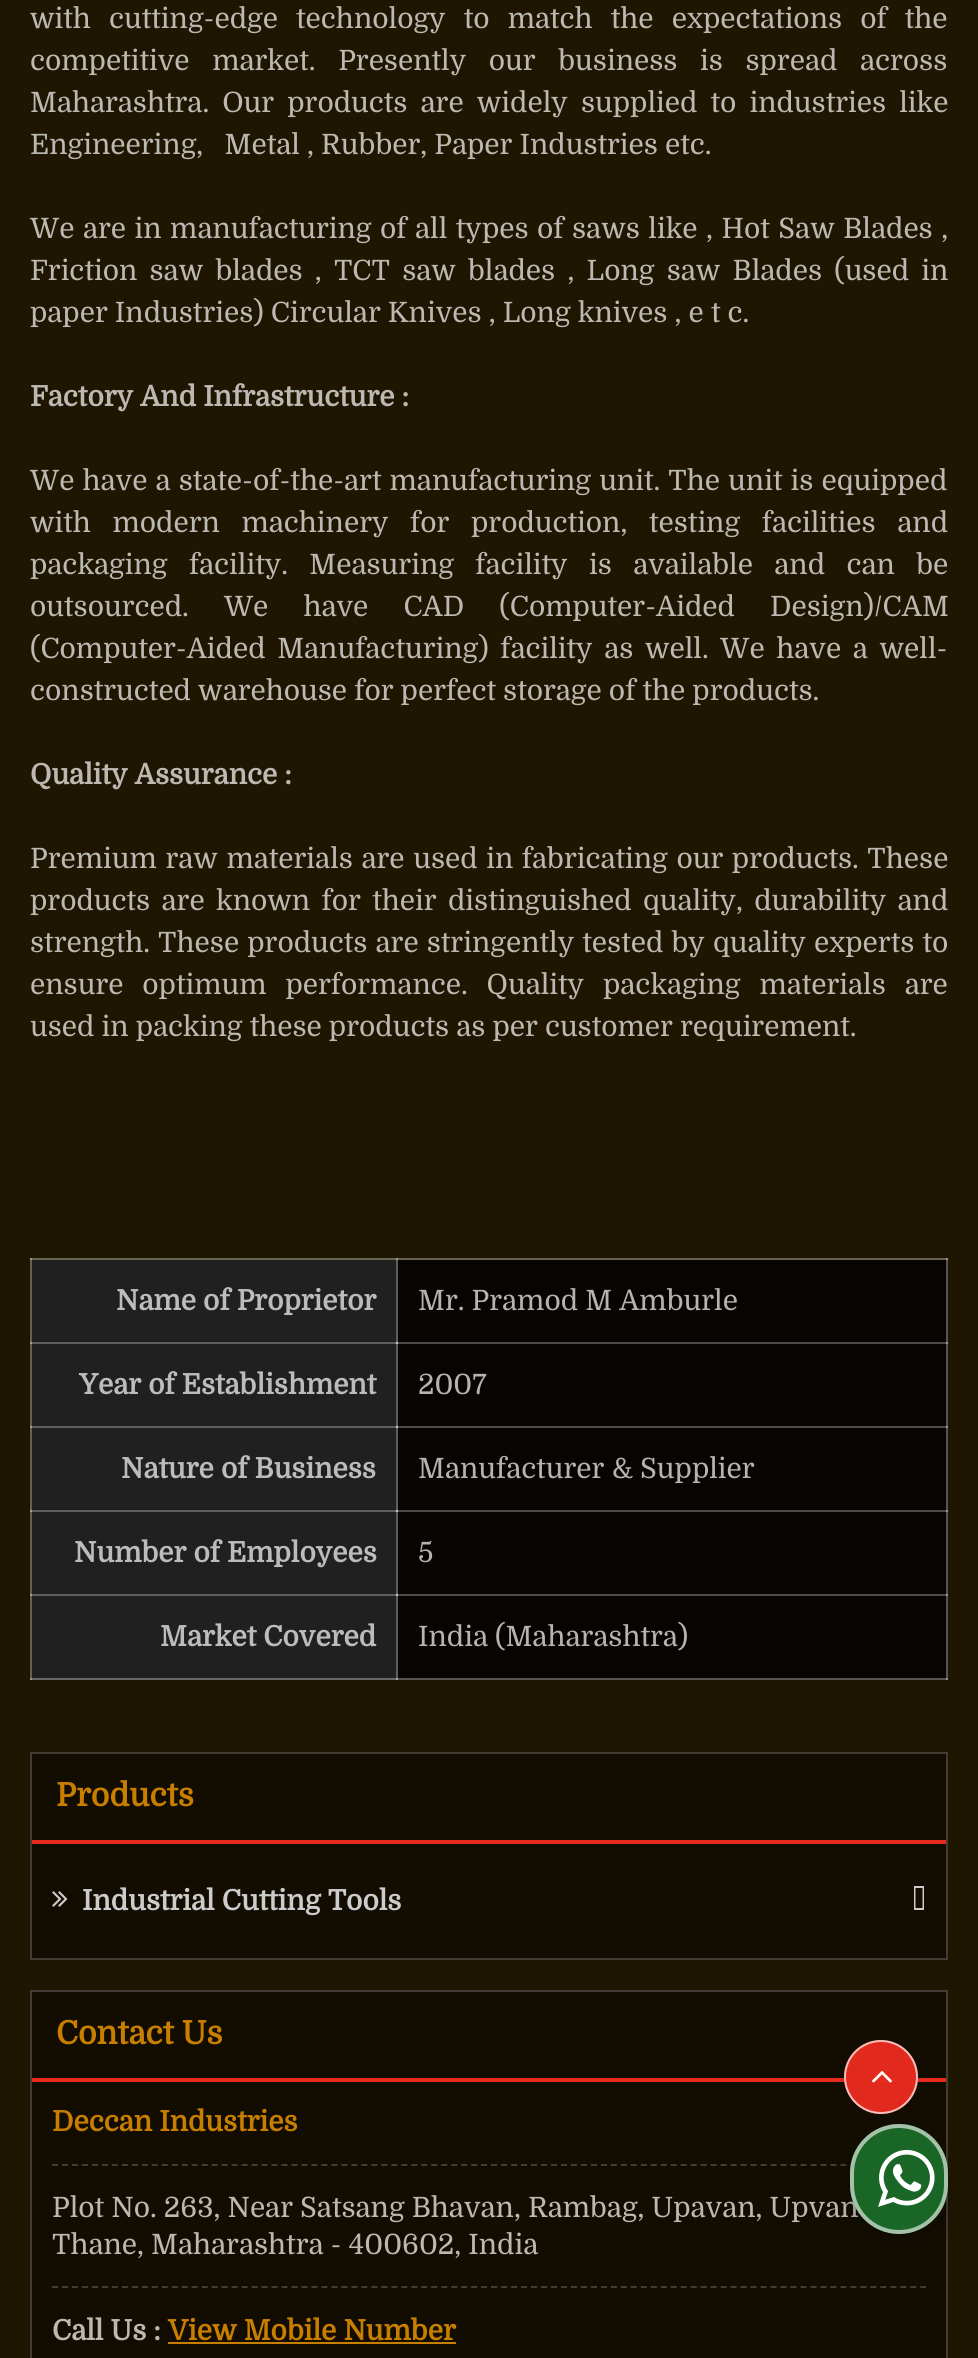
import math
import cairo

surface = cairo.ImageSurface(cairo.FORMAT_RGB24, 978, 2358)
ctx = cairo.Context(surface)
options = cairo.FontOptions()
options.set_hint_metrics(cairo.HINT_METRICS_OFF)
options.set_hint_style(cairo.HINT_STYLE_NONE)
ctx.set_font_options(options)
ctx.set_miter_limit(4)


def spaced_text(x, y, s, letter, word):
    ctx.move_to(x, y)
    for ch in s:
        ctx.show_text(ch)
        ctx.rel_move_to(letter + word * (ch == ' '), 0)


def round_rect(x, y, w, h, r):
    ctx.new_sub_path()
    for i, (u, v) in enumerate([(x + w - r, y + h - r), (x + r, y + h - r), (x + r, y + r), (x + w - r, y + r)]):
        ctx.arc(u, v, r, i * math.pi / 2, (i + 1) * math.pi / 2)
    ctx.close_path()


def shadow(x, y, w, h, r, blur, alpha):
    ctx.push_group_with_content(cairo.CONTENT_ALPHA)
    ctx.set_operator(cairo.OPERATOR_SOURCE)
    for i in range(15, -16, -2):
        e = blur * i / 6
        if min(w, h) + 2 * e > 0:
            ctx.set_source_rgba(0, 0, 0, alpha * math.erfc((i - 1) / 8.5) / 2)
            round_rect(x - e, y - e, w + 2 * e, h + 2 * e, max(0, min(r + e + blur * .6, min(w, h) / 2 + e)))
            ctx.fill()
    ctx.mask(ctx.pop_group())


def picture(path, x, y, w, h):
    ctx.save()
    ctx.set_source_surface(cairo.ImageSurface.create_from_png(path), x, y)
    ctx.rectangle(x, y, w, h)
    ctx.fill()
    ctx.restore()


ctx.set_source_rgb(0.122, 0.086, 0.004)
ctx.paint()
ctx.set_source_rgb(0.404, 0.38, 0.322)
ctx.rectangle(30, 1258, 2, 422)
ctx.fill()
ctx.set_source_rgb(0.635, 0.62, 0.584)
ctx.rectangle(30, 1342, 2, 2)
ctx.fill()
ctx.rectangle(30, 1426, 2, 2)
ctx.fill()
ctx.rectangle(30, 1510, 2, 2)
ctx.fill()
ctx.rectangle(30, 1594, 2, 2)
ctx.fill()
ctx.set_source_rgb(0.592, 0.576, 0.541)
ctx.rectangle(30, 1678, 2, 2)
ctx.fill()
ctx.select_font_face("Domine")
ctx.set_font_size(28)
ctx.set_source_rgb(0.737, 0.725, 0.702)
spaced_text(30, 28, "with cutting-edge technology to match the expectations of the", 0, 11)
spaced_text(30, 70, "competitive market. Presently our business is spread across", 0, 15.5)
spaced_text(30, 112, "Maharashtra. Our products are widely supplied to industries like", 0, 6)
ctx.move_to(30, 154)
ctx.show_text("Engineering,   Metal , Rubber, Paper Industries etc.")
spaced_text(30, 238, "We are in manufacturing of all types of saws like , Hot Saw Blades ,", 0, 1.4)
spaced_text(30, 280, "Friction saw blades , TCT saw blades , Long saw Blades (used in", 0, 5.1)
ctx.move_to(30, 322)
ctx.show_text("paper Industries) Circular Knives , Long knives , e t c.")
ctx.select_font_face("Domine", cairo.FONT_SLANT_NORMAL, cairo.FONT_WEIGHT_BOLD)
ctx.move_to(30, 406)
ctx.show_text("Factory And Infrastructure :")
ctx.select_font_face("Domine")
spaced_text(30, 490, "We have a state-of-the-art manufacturing unit. The unit is equipped", 0, 1)
spaced_text(30, 532, "with modern machinery for production, testing facilities and", 0, 14.5)
spaced_text(30, 574, "packaging facility. Measuring facility is available and can be", 0, 14.25)
spaced_text(30, 616, "outsourced. We have CAD (Computer-Aided Design)/CAM", 0, 28)
spaced_text(30, 658, "(Computer-Aided Manufacturing) facility as well. We have a well-", 0, 4.5)
ctx.move_to(30, 700)
ctx.show_text("constructed warehouse for perfect storage of the products.")
ctx.select_font_face("Domine", cairo.FONT_SLANT_NORMAL, cairo.FONT_WEIGHT_BOLD)
ctx.move_to(30, 784)
ctx.show_text("Quality Assurance :")
ctx.select_font_face("Domine")
spaced_text(30, 868, "Premium raw materials are used in fabricating our products. These", 0, 1.5)
spaced_text(30, 910, "products are known for their distinguished quality, durability and", 0, 4.25)
spaced_text(30, 952, "strength. These products are stringently tested by quality experts to", 0, 1)
spaced_text(30, 994, "ensure optimum performance. Quality packaging materials are", 0, 11.75)
ctx.move_to(30, 1036)
ctx.show_text("used in packing these products as per customer requirement.")
ctx.set_source_rgb(0.404, 0.38, 0.322)
ctx.rectangle(30, 1258, 918, 2)
ctx.fill()
ctx.set_source_rgb(0.635, 0.62, 0.584)
ctx.rectangle(396, 1258, 2, 2)
ctx.fill()
ctx.set_source_rgb(0.592, 0.576, 0.541)
ctx.rectangle(30, 1258, 2, 2)
ctx.fill()
ctx.rectangle(946, 1258, 2, 2)
ctx.fill()
ctx.set_source_rgb(0.129, 0.125, 0.125)
ctx.rectangle(32, 1260, 364, 82)
ctx.fill()
ctx.set_source_rgb(0.369, 0.369, 0.369)
ctx.rectangle(396, 1260, 2, 420)
ctx.fill()
ctx.rectangle(32, 1342, 366, 2)
ctx.fill()
ctx.set_source_rgb(0.765, 0.765, 0.765)
ctx.rectangle(396, 1342, 2, 2)
ctx.fill()
ctx.select_font_face("Domine", cairo.FONT_SLANT_NORMAL, cairo.FONT_WEIGHT_BOLD)
ctx.set_source_rgb(0.737, 0.737, 0.737)
ctx.move_to(116, 1310)
ctx.show_text("Name of Proprietor")
ctx.set_source_rgb(0.031, 0.016, 0.004)
ctx.rectangle(398, 1260, 548, 82)
ctx.fill()
ctx.set_source_rgb(0.302, 0.29, 0.278)
ctx.rectangle(398, 1342, 550, 2)
ctx.fill()
ctx.set_source_rgb(0.341, 0.329, 0.322)
ctx.rectangle(946, 1260, 2, 84)
ctx.fill()
ctx.set_source_rgb(0.592, 0.588, 0.584)
ctx.rectangle(946, 1342, 2, 2)
ctx.fill()
ctx.select_font_face("Domine")
ctx.set_source_rgb(0.71, 0.706, 0.702)
ctx.move_to(418, 1310)
ctx.show_text("Mr. Pramod M Amburle")
ctx.set_source_rgb(0.129, 0.125, 0.125)
ctx.rectangle(32, 1344, 364, 82)
ctx.fill()
ctx.set_source_rgb(0.369, 0.369, 0.369)
ctx.rectangle(32, 1426, 366, 2)
ctx.fill()
ctx.set_source_rgb(0.765, 0.765, 0.765)
ctx.rectangle(396, 1426, 2, 2)
ctx.fill()
ctx.select_font_face("Domine", cairo.FONT_SLANT_NORMAL, cairo.FONT_WEIGHT_BOLD)
ctx.set_source_rgb(0.737, 0.737, 0.737)
ctx.move_to(79, 1394)
ctx.show_text("Year of Establishment")
ctx.set_source_rgb(0.031, 0.016, 0.004)
ctx.rectangle(398, 1344, 548, 82)
ctx.fill()
ctx.set_source_rgb(0.302, 0.29, 0.278)
ctx.rectangle(398, 1426, 550, 2)
ctx.fill()
ctx.set_source_rgb(0.341, 0.329, 0.322)
ctx.rectangle(946, 1344, 2, 84)
ctx.fill()
ctx.set_source_rgb(0.592, 0.588, 0.584)
ctx.rectangle(946, 1426, 2, 2)
ctx.fill()
ctx.select_font_face("Domine")
ctx.set_source_rgb(0.71, 0.706, 0.702)
ctx.move_to(418, 1394)
ctx.show_text("2007")
ctx.set_source_rgb(0.129, 0.125, 0.125)
ctx.rectangle(32, 1428, 364, 82)
ctx.fill()
ctx.set_source_rgb(0.369, 0.369, 0.369)
ctx.rectangle(32, 1510, 366, 2)
ctx.fill()
ctx.set_source_rgb(0.765, 0.765, 0.765)
ctx.rectangle(396, 1510, 2, 2)
ctx.fill()
ctx.select_font_face("Domine", cairo.FONT_SLANT_NORMAL, cairo.FONT_WEIGHT_BOLD)
ctx.set_source_rgb(0.737, 0.737, 0.737)
ctx.move_to(121, 1478)
ctx.show_text("Nature of Business")
ctx.set_source_rgb(0.031, 0.016, 0.004)
ctx.rectangle(398, 1428, 548, 82)
ctx.fill()
ctx.set_source_rgb(0.302, 0.29, 0.278)
ctx.rectangle(398, 1510, 550, 2)
ctx.fill()
ctx.set_source_rgb(0.341, 0.329, 0.322)
ctx.rectangle(946, 1428, 2, 84)
ctx.fill()
ctx.set_source_rgb(0.592, 0.588, 0.584)
ctx.rectangle(946, 1510, 2, 2)
ctx.fill()
ctx.select_font_face("Domine")
ctx.set_source_rgb(0.71, 0.706, 0.702)
ctx.move_to(418, 1478)
ctx.show_text("Manufacturer & Supplier")
ctx.set_source_rgb(0.129, 0.125, 0.125)
ctx.rectangle(32, 1512, 364, 82)
ctx.fill()
ctx.set_source_rgb(0.369, 0.369, 0.369)
ctx.rectangle(32, 1594, 366, 2)
ctx.fill()
ctx.set_source_rgb(0.765, 0.765, 0.765)
ctx.rectangle(396, 1594, 2, 2)
ctx.fill()
ctx.select_font_face("Domine", cairo.FONT_SLANT_NORMAL, cairo.FONT_WEIGHT_BOLD)
ctx.set_source_rgb(0.737, 0.737, 0.737)
ctx.move_to(74, 1562)
ctx.show_text("Number of Employees")
ctx.set_source_rgb(0.031, 0.016, 0.004)
ctx.rectangle(398, 1512, 548, 82)
ctx.fill()
ctx.set_source_rgb(0.302, 0.29, 0.278)
ctx.rectangle(398, 1594, 550, 2)
ctx.fill()
ctx.set_source_rgb(0.341, 0.329, 0.322)
ctx.rectangle(946, 1512, 2, 84)
ctx.fill()
ctx.set_source_rgb(0.592, 0.588, 0.584)
ctx.rectangle(946, 1594, 2, 2)
ctx.fill()
ctx.select_font_face("Domine")
ctx.set_source_rgb(0.71, 0.706, 0.702)
ctx.move_to(418, 1562)
ctx.show_text("5")
ctx.set_source_rgb(0.129, 0.125, 0.125)
ctx.rectangle(32, 1596, 364, 82)
ctx.fill()
ctx.set_source_rgb(0.408, 0.408, 0.408)
ctx.rectangle(32, 1678, 366, 2)
ctx.fill()
ctx.set_source_rgb(0.635, 0.635, 0.635)
ctx.rectangle(396, 1678, 2, 2)
ctx.fill()
ctx.select_font_face("Domine", cairo.FONT_SLANT_NORMAL, cairo.FONT_WEIGHT_BOLD)
ctx.set_source_rgb(0.737, 0.737, 0.737)
ctx.move_to(160, 1646)
ctx.show_text("Market Covered")
ctx.set_source_rgb(0.031, 0.016, 0.004)
ctx.rectangle(398, 1596, 548, 82)
ctx.fill()
ctx.set_source_rgb(0.341, 0.329, 0.322)
ctx.rectangle(398, 1678, 550, 2)
ctx.fill()
ctx.rectangle(946, 1596, 2, 84)
ctx.fill()
ctx.set_source_rgb(0.553, 0.545, 0.541)
ctx.rectangle(946, 1678, 2, 2)
ctx.fill()
ctx.select_font_face("Domine")
ctx.set_source_rgb(0.71, 0.706, 0.702)
ctx.move_to(418, 1646)
ctx.show_text("India (Maharashtra)")
ctx.set_source_rgb(0.075, 0.051, 0.004)
ctx.rectangle(31, 1753, 916, 206)
ctx.fill_preserve()
ctx.set_source_rgb(0.259, 0.239, 0.204)
ctx.stroke()
ctx.set_source_rgb(0.902, 0.165, 0.122)
ctx.rectangle(32, 1840, 914, 4)
ctx.fill()
ctx.select_font_face("Domine", cairo.FONT_SLANT_NORMAL, cairo.FONT_WEIGHT_BOLD)
ctx.set_font_size(32)
ctx.set_source_rgb(0.784, 0.498, 0)
ctx.move_to(56, 1806)
ctx.show_text("Products")
picture("img1.png", 52, 1891, 16, 16)
ctx.set_font_size(28)
ctx.set_source_rgb(0.8, 0.8, 0.8)
ctx.move_to(82, 1910)
ctx.show_text("Industrial Cutting Tools")
ctx.new_path()
ctx.move_to(915.5, 1908)
ctx.line_to(922.5, 1908)
ctx.line_to(922.5, 1888)
ctx.line_to(915.5, 1888)
ctx.close_path()
ctx.move_to(914, 1910)
ctx.line_to(914, 1886)
ctx.line_to(924, 1886)
ctx.line_to(924, 1910)
ctx.close_path()
ctx.fill()
ctx.set_source_rgb(0.075, 0.051, 0.004)
ctx.rectangle(31, 1991, 916, 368)
ctx.fill_preserve()
ctx.set_source_rgb(0.259, 0.239, 0.204)
ctx.stroke()
ctx.set_source_rgb(0.902, 0.165, 0.122)
ctx.rectangle(32, 2078, 914, 4)
ctx.fill()
ctx.set_font_size(32)
ctx.set_source_rgb(0.784, 0.498, 0)
ctx.move_to(56, 2044)
ctx.show_text("Contact Us")
ctx.set_font_size(28)
ctx.move_to(52, 2131)
ctx.show_text("Deccan Industries")
ctx.new_path()
ctx.move_to(52, 2165)
ctx.line_to(926, 2165)
ctx.set_source_rgb(0.259, 0.239, 0.204)
ctx.set_dash([6, 3.98])
ctx.stroke()
ctx.select_font_face("Domine")
ctx.set_source_rgb(0.737, 0.725, 0.702)
ctx.move_to(52, 2217)
ctx.show_text("Plot No. 263, Near Satsang Bhavan, Rambag, Upavan, Upvan")
ctx.move_to(52, 2254)
ctx.show_text("Thane, Maharashtra - 400602, India")
ctx.new_path()
ctx.move_to(52, 2287)
ctx.line_to(926, 2287)
ctx.set_source_rgb(0.259, 0.239, 0.204)
ctx.stroke()
ctx.select_font_face("Domine", cairo.FONT_SLANT_NORMAL, cairo.FONT_WEIGHT_BOLD)
ctx.set_source_rgb(0.737, 0.725, 0.702)
ctx.move_to(52, 2340)
ctx.show_text("Call Us :")
ctx.set_source_rgb(0.784, 0.498, 0)
ctx.move_to(168, 2340)
ctx.show_text("View Mobile Number")
ctx.rectangle(168, 2342, 288, 2)
ctx.fill()
ctx.set_source_rgba(0.902, 0.165, 0.122, 0.98)
ctx.arc(881, 2077, 37, 0, 2 * math.pi)
ctx.fill()
ctx.arc(881, 2077, 36, 0, 2 * math.pi)
ctx.set_source_rgba(1, 1, 1, 0.69)
ctx.set_dash([])
ctx.stroke()
picture("img2.png", 872, 2071, 20, 12)
ctx.set_source_rgb(0, 0, 0)
shadow(846, 2132, 106, 118, 53, 8, 0.14)
ctx.set_source_rgb(0.098, 0.4, 0.149)
round_rect(850, 2124, 98, 110, 49)
ctx.fill()
round_rect(852, 2126, 94, 106, 47)
ctx.set_source_rgba(1, 1, 1, 0.6)
ctx.set_line_width(4)
ctx.stroke()
picture("img3.png", 878, 2149, 57, 58)
surface.write_to_png("page.png")
